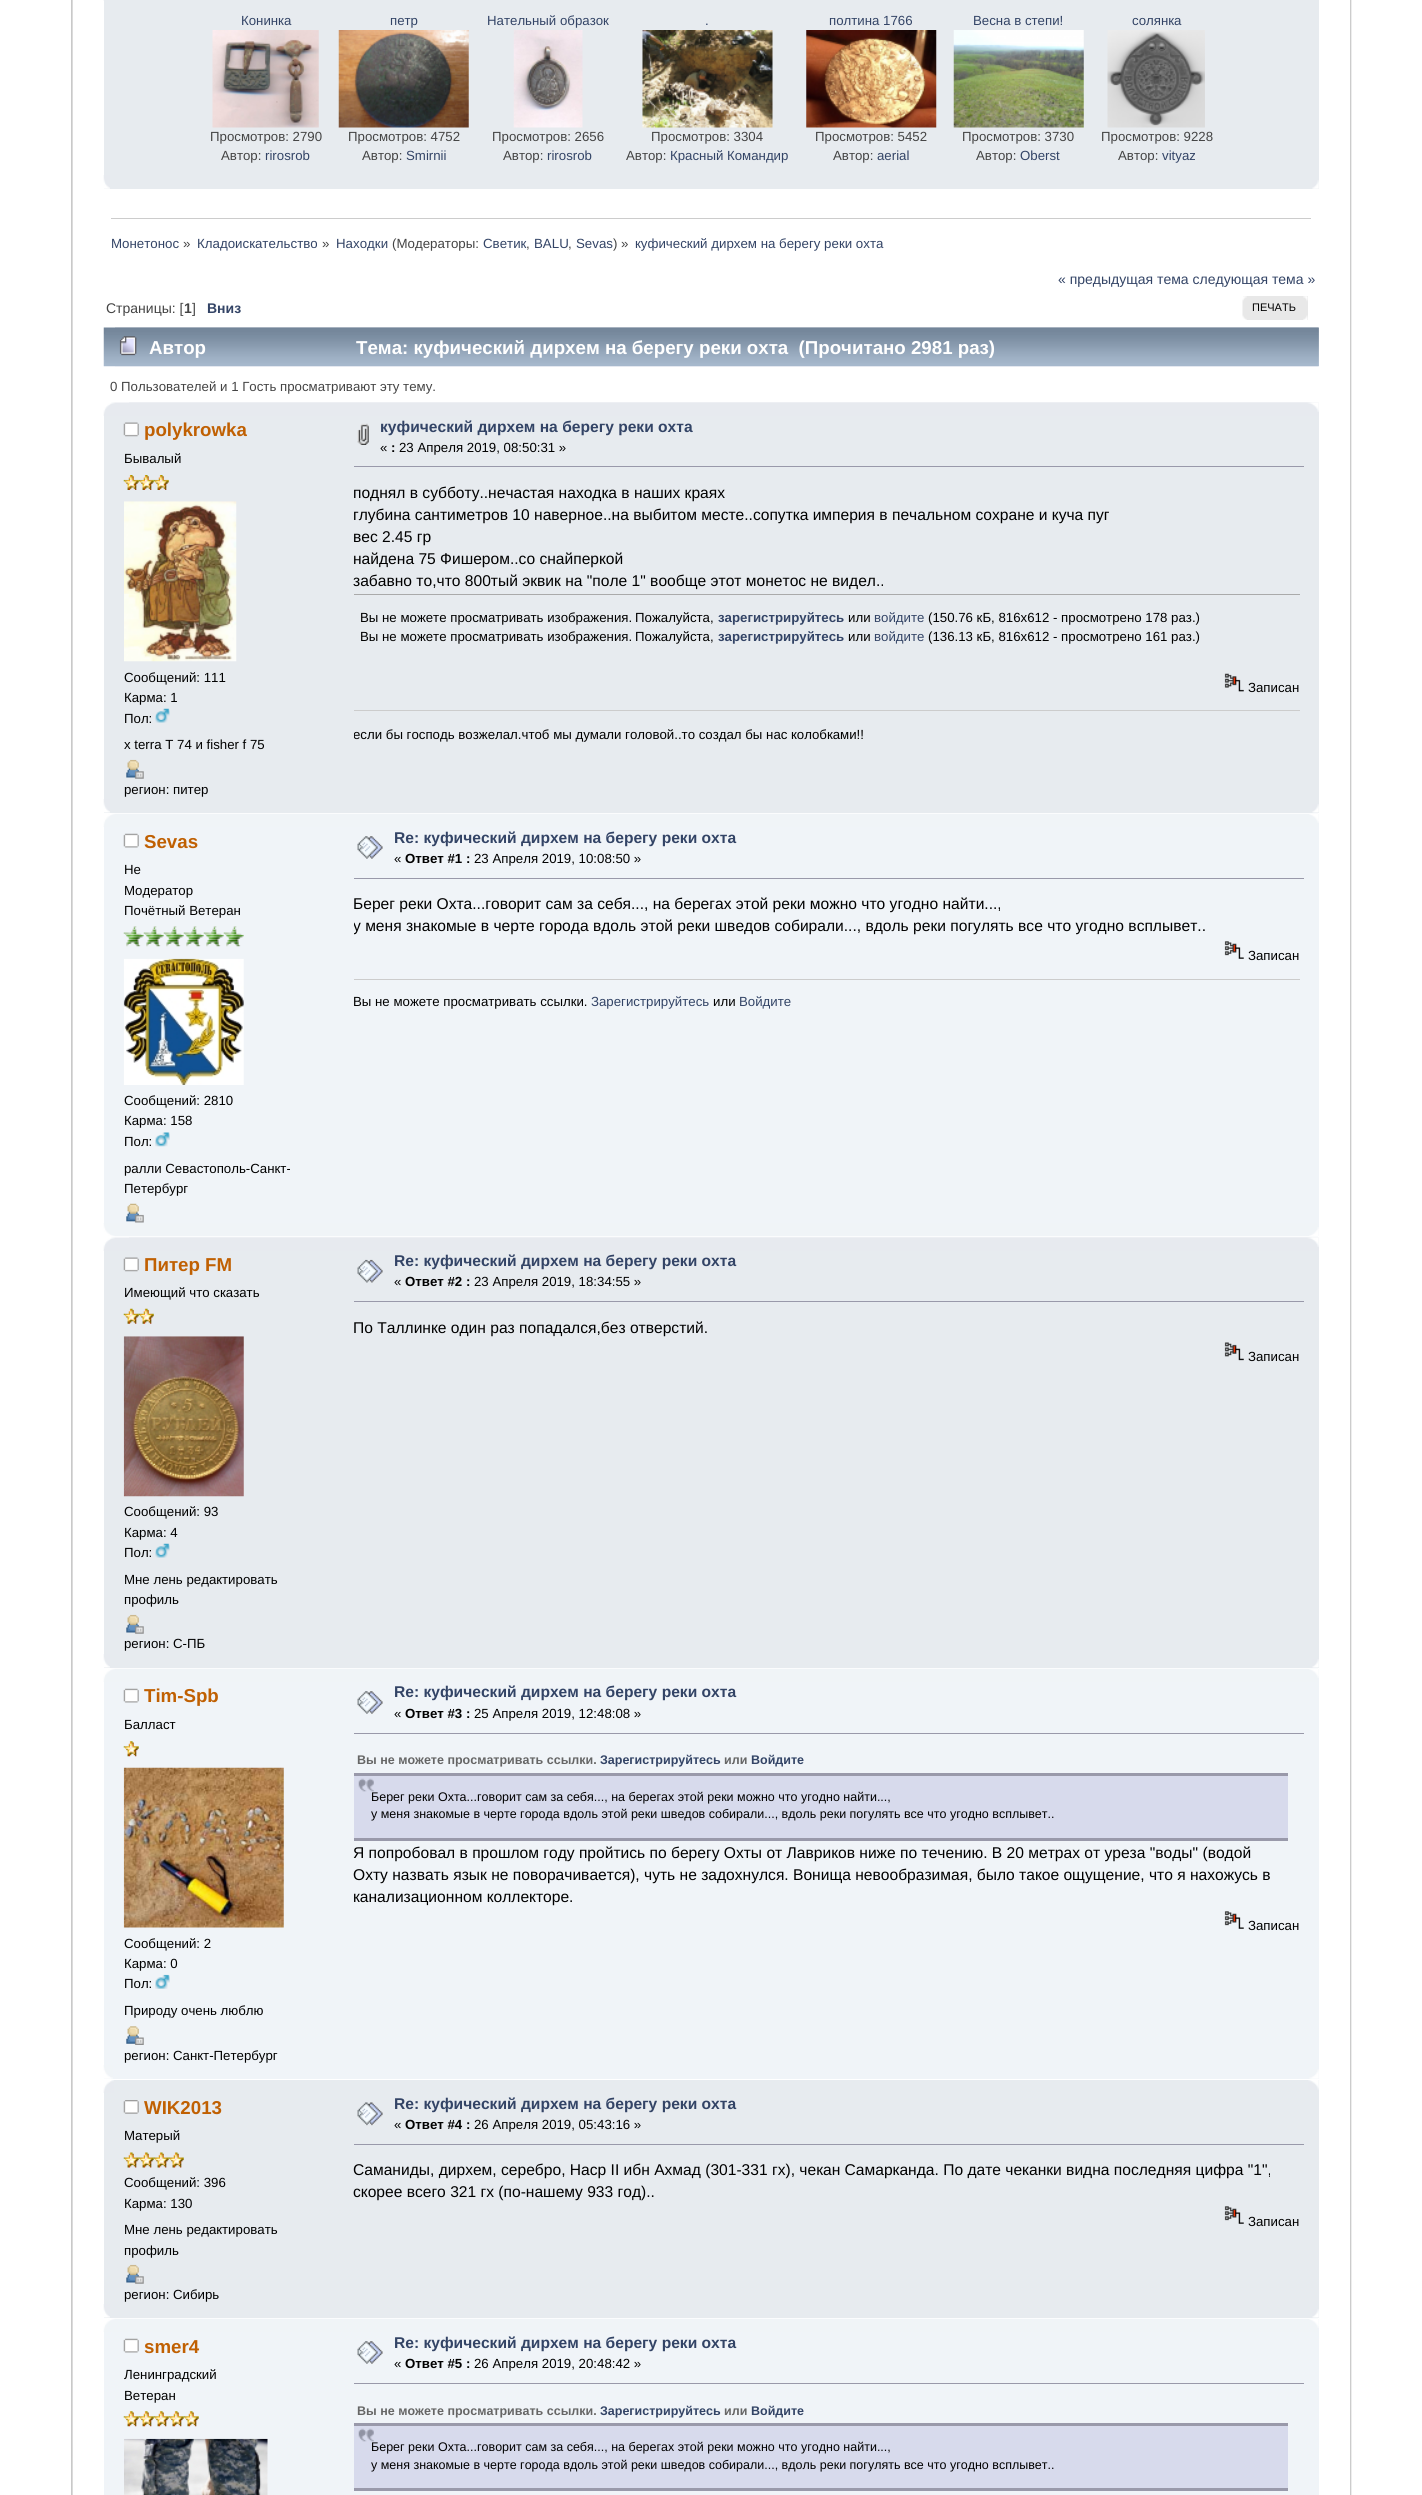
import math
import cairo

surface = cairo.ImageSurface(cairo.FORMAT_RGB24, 1422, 2495)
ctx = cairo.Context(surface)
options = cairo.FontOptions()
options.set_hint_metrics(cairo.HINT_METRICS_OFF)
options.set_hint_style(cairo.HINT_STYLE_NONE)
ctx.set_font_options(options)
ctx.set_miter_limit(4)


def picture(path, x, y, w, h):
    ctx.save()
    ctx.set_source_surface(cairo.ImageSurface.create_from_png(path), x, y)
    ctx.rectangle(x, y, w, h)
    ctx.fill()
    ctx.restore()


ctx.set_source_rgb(1, 1, 1)
ctx.paint()
picture("img1.png", 71, 0, 2, 2495)
picture("img2.png", 1350, 0, 2, 2495)
ctx.set_source_rgb(0.906, 0.918, 0.937)
ctx.rectangle(104, 0, 1215, 189)
ctx.fill()
ctx.set_source_rgb(0.976, 0.98, 0.984)
ctx.rectangle(103, 0, 1, 1)
ctx.fill()
ctx.select_font_face("Liberation Sans")
ctx.set_font_size(13.25)
ctx.set_source_rgb(0.2, 0.267, 0.4)
ctx.move_to(241, 25)
ctx.show_text("Конинка")
picture("img3.png", 212, 30, 107, 98)
ctx.set_source_rgb(0.267, 0.267, 0.267)
ctx.move_to(210, 141)
ctx.show_text("Просмотров: 2790")
ctx.move_to(221, 160)
ctx.show_text("Автор:")
ctx.set_source_rgb(0.2, 0.267, 0.4)
ctx.move_to(265, 160)
ctx.show_text("rirosrob")
ctx.move_to(390, 25)
ctx.show_text("петр")
picture("img4.png", 338, 30, 131, 98)
ctx.set_source_rgb(0.267, 0.267, 0.267)
ctx.move_to(348, 141)
ctx.show_text("Просмотров: 4752")
ctx.move_to(362, 160)
ctx.show_text("Автор:")
ctx.set_source_rgb(0.2, 0.267, 0.4)
ctx.move_to(406, 160)
ctx.show_text("Smirnii")
ctx.move_to(487, 25)
ctx.show_text("Нательный образок")
picture("img5.png", 513, 30, 70, 98)
ctx.set_source_rgb(0.267, 0.267, 0.267)
ctx.move_to(492, 141)
ctx.show_text("Просмотров: 2656")
ctx.move_to(503, 160)
ctx.show_text("Автор:")
ctx.set_source_rgb(0.2, 0.267, 0.4)
ctx.move_to(547, 160)
ctx.show_text("rirosrob")
ctx.move_to(705, 25)
ctx.show_text(".")
picture("img6.png", 642, 30, 131, 98)
ctx.set_source_rgb(0.267, 0.267, 0.267)
ctx.move_to(651, 141)
ctx.show_text("Просмотров: 3304")
ctx.move_to(626, 160)
ctx.show_text("Автор:")
ctx.set_source_rgb(0.2, 0.267, 0.4)
ctx.move_to(670, 160)
ctx.show_text("Красный Командир")
ctx.move_to(829, 25)
ctx.show_text("полтина 1766")
picture("img7.png", 806, 30, 131, 98)
ctx.set_source_rgb(0.267, 0.267, 0.267)
ctx.move_to(815, 141)
ctx.show_text("Просмотров: 5452")
ctx.move_to(833, 160)
ctx.show_text("Автор:")
ctx.set_source_rgb(0.2, 0.267, 0.4)
ctx.move_to(877, 160)
ctx.show_text("aerial")
ctx.move_to(973, 25)
ctx.show_text("Весна в степи!")
picture("img8.png", 953, 30, 131, 98)
ctx.set_source_rgb(0.267, 0.267, 0.267)
ctx.move_to(962, 141)
ctx.show_text("Просмотров: 3730")
ctx.move_to(976, 160)
ctx.show_text("Автор:")
ctx.set_source_rgb(0.2, 0.267, 0.4)
ctx.move_to(1020, 160)
ctx.show_text("Oberst")
ctx.move_to(1132, 25)
ctx.show_text("солянка")
picture("img9.png", 1107, 30, 98, 98)
ctx.set_source_rgb(0.267, 0.267, 0.267)
ctx.move_to(1101, 141)
ctx.show_text("Просмотров: 9228")
ctx.move_to(1118, 160)
ctx.show_text("Автор:")
ctx.set_source_rgb(0.2, 0.267, 0.4)
ctx.move_to(1162, 160)
ctx.show_text("vityaz")
picture("img10.png", 103, 175, 7, 14)
picture("img11.png", 1312, 180, 7, 9)
ctx.set_source_rgb(0.8, 0.8, 0.8)
ctx.rectangle(111, 218, 1200, 1)
ctx.fill()
ctx.set_font_size(13.3)
ctx.set_source_rgb(0.2, 0.267, 0.4)
ctx.move_to(111, 248)
ctx.show_text("Монетонос")
ctx.set_source_rgb(0.267, 0.267, 0.267)
ctx.move_to(183, 248)
ctx.show_text("»")
ctx.set_source_rgb(0.2, 0.267, 0.4)
ctx.move_to(197, 248)
ctx.show_text("Кладоискательство")
ctx.set_source_rgb(0.267, 0.267, 0.267)
ctx.move_to(322, 248)
ctx.show_text("»")
ctx.set_source_rgb(0.2, 0.267, 0.4)
ctx.move_to(336, 248)
ctx.show_text("Находки")
ctx.set_source_rgb(0.267, 0.267, 0.267)
ctx.move_to(392, 248)
ctx.show_text("(Модераторы:")
ctx.set_source_rgb(0.2, 0.267, 0.4)
ctx.move_to(483, 248)
ctx.show_text("Светик")
ctx.set_source_rgb(0.267, 0.267, 0.267)
ctx.move_to(526, 248)
ctx.show_text(",")
ctx.set_source_rgb(0.2, 0.267, 0.4)
ctx.move_to(534, 248)
ctx.show_text("BALU")
ctx.set_source_rgb(0.267, 0.267, 0.267)
ctx.move_to(568, 248)
ctx.show_text(",")
ctx.set_source_rgb(0.2, 0.267, 0.4)
ctx.move_to(576, 248)
ctx.show_text("Sevas")
ctx.set_source_rgb(0.267, 0.267, 0.267)
ctx.move_to(613, 248)
ctx.show_text(") »")
ctx.set_source_rgb(0.2, 0.267, 0.4)
ctx.move_to(635, 248)
ctx.show_text("куфический дирхем на берегу реки охта")
ctx.set_font_size(14)
ctx.move_to(1058, 284)
ctx.show_text("« предыдущая тема следующая тема »")
ctx.set_source_rgb(0.267, 0.267, 0.267)
ctx.move_to(106, 313)
ctx.show_text("Страницы: [")
ctx.select_font_face("Liberation Sans", cairo.FONT_SLANT_NORMAL, cairo.FONT_WEIGHT_BOLD)
ctx.move_to(184, 313)
ctx.show_text("1")
ctx.select_font_face("Liberation Sans")
ctx.move_to(192, 313)
ctx.show_text("]")
ctx.select_font_face("Liberation Sans", cairo.FONT_SLANT_NORMAL, cairo.FONT_WEIGHT_BOLD)
ctx.set_source_rgb(0.2, 0.267, 0.4)
ctx.move_to(207, 313)
ctx.show_text("Вниз")
ctx.set_source_rgb(0.91, 0.91, 0.91)
ctx.rectangle(1243, 296, 65, 24)
ctx.fill()
picture("img12.png", 1242, 296, 5, 24)
picture("img13.png", 1303, 296, 5, 24)
ctx.select_font_face("Liberation Sans")
ctx.set_font_size(11)
ctx.set_source_rgb(0, 0, 0)
ctx.move_to(1252, 311)
ctx.show_text("ПЕЧАТЬ")
picture("img14.png", 103, 327, 1216, 40)
picture("img15.png", 115, 327, 1204, 40)
picture("img16.png", 119, 336, 18, 20)
ctx.select_font_face("Liberation Sans", cairo.FONT_SLANT_NORMAL, cairo.FONT_WEIGHT_BOLD)
ctx.set_font_size(18.7)
ctx.set_source_rgb(1, 1, 1)
ctx.move_to(149, 354)
ctx.show_text("Автор")
ctx.move_to(356, 354)
ctx.show_text("Тема: куфический дирхем на берегу реки охта  (Прочитано 2981 раз)")
ctx.select_font_face("Liberation Sans")
ctx.set_font_size(13.25)
ctx.set_source_rgb(0.267, 0.267, 0.267)
ctx.move_to(110, 391)
ctx.show_text("0 Пользователей и 1 Гость просматривают эту тему.")
ctx.set_source_rgb(0.906, 0.918, 0.937)
ctx.rectangle(104, 403, 1215, 410)
ctx.fill()
picture("img17.png", 103, 402, 1216, 14)
picture("img18.png", 129, 402, 1190, 10)
picture("img19.png", 123, 422, 16, 15)
ctx.select_font_face("Liberation Sans", cairo.FONT_SLANT_NORMAL, cairo.FONT_WEIGHT_BOLD)
ctx.set_font_size(18.7)
ctx.set_source_rgb(0.753, 0.376, 0.008)
ctx.move_to(144, 436)
ctx.show_text("polykrowka")
ctx.select_font_face("Liberation Sans")
ctx.set_font_size(13.25)
ctx.set_source_rgb(0, 0, 0)
ctx.move_to(124, 463)
ctx.show_text("Бывалый")
picture("img20.png", 123, 475, 16, 15)
picture("img21.png", 138, 475, 16, 15)
picture("img21.png", 153, 475, 16, 15)
picture("img22.png", 124, 501, 113, 161)
ctx.move_to(124, 682)
ctx.show_text("Сообщений: 111")
ctx.move_to(124, 702)
ctx.show_text("Карма: 1")
ctx.move_to(124, 723)
ctx.show_text("Пол:")
picture("img23.png", 155, 708, 15, 15)
ctx.move_to(124, 749)
ctx.show_text("x terra T 74 и fisher f 75")
picture("img24.png", 126, 759, 18, 20)
ctx.move_to(124, 794)
ctx.show_text("регион: питер")
picture("img25.png", 357, 423, 12, 22)
ctx.select_font_face("Liberation Sans", cairo.FONT_SLANT_NORMAL, cairo.FONT_WEIGHT_BOLD)
ctx.set_font_size(15.6)
ctx.set_source_rgb(0.2, 0.267, 0.4)
ctx.move_to(380, 432)
ctx.show_text("куфический дирхем на берегу реки охта")
ctx.select_font_face("Liberation Sans")
ctx.set_font_size(13.25)
ctx.set_source_rgb(0, 0, 0)
ctx.move_to(380, 452)
ctx.show_text("«")
ctx.select_font_face("Liberation Sans", cairo.FONT_SLANT_NORMAL, cairo.FONT_WEIGHT_BOLD)
ctx.move_to(391, 452)
ctx.show_text(":")
ctx.select_font_face("Liberation Sans")
ctx.move_to(399, 452)
ctx.show_text("23 Апреля 2019, 08:50:31 »")
ctx.set_source_rgb(0.6, 0.6, 0.667)
ctx.rectangle(354, 466, 950, 1)
ctx.fill()
ctx.set_font_size(15.6)
ctx.set_source_rgb(0, 0, 0)
ctx.move_to(353, 498)
ctx.show_text("поднял в субботу..нечастая находка в наших краях")
ctx.move_to(353, 520)
ctx.show_text("глубина сантиметров 10 наверное..на выбитом месте..сопутка империя в печальном сохране и куча пуг")
ctx.move_to(353, 542)
ctx.show_text("вес 2.45 гр")
ctx.move_to(353, 564)
ctx.show_text("найдена 75 Фишером..со снайперкой")
ctx.move_to(353, 586)
ctx.show_text("забавно то,что 800тый эквик на \"поле 1\" вообще этот монетос не видел..")
ctx.set_source_rgb(0.667, 0.667, 0.667)
ctx.rectangle(354, 594, 946, 1)
ctx.fill()
ctx.set_font_size(13.25)
ctx.set_source_rgb(0, 0, 0)
ctx.move_to(360, 622)
ctx.show_text("Вы не можете просматривать изображения.")
ctx.move_to(635, 622)
ctx.show_text("Пожалуйста,")
ctx.select_font_face("Liberation Sans", cairo.FONT_SLANT_NORMAL, cairo.FONT_WEIGHT_BOLD)
ctx.set_source_rgb(0.2, 0.267, 0.4)
ctx.move_to(718, 622)
ctx.show_text("зарегистрируйтесь")
ctx.select_font_face("Liberation Sans")
ctx.set_source_rgb(0, 0, 0)
ctx.move_to(848, 622)
ctx.show_text("или")
ctx.set_source_rgb(0.2, 0.267, 0.4)
ctx.move_to(874, 622)
ctx.show_text("войдите")
ctx.set_source_rgb(0, 0, 0)
ctx.move_to(928, 622)
ctx.show_text("(150.76 кБ, 816x612 - просмотрено 178 раз.)")
ctx.move_to(360, 641)
ctx.show_text("Вы не можете просматривать изображения.")
ctx.move_to(635, 641)
ctx.show_text("Пожалуйста,")
ctx.select_font_face("Liberation Sans", cairo.FONT_SLANT_NORMAL, cairo.FONT_WEIGHT_BOLD)
ctx.set_source_rgb(0.2, 0.267, 0.4)
ctx.move_to(718, 641)
ctx.show_text("зарегистрируйтесь")
ctx.select_font_face("Liberation Sans")
ctx.set_source_rgb(0, 0, 0)
ctx.move_to(848, 641)
ctx.show_text("или")
ctx.set_source_rgb(0.2, 0.267, 0.4)
ctx.move_to(874, 641)
ctx.show_text("войдите")
ctx.set_source_rgb(0, 0, 0)
ctx.move_to(928, 641)
ctx.show_text("(136.13 кБ, 816x612 - просмотрено 161 раз.)")
picture("img26.png", 1224, 673, 20, 19)
ctx.move_to(1248, 692)
ctx.show_text("Записан")
ctx.set_source_rgb(0.8, 0.8, 0.8)
ctx.rectangle(354, 710, 946, 1)
ctx.fill()
ctx.save()
ctx.rectangle(354, 711, 946, 37)
ctx.clip()
ctx.set_source_rgb(0, 0, 0)
ctx.move_to(353, 739)
ctx.show_text("если бы господь возжелал.чтоб мы думали головой..то создал бы нас колобками!!")
ctx.restore()
picture("img27.png", 103, 799, 7, 14)
picture("img28.png", 1312, 804, 7, 9)
ctx.set_source_rgb(0.941, 0.957, 0.969)
ctx.rectangle(104, 814, 1215, 422)
ctx.fill()
picture("img29.png", 103, 813, 1215, 14)
picture("img30.png", 1309, 814, 10, 9)
picture("img31.png", 123, 833, 16, 15)
ctx.select_font_face("Liberation Sans", cairo.FONT_SLANT_NORMAL, cairo.FONT_WEIGHT_BOLD)
ctx.set_font_size(18.7)
ctx.set_source_rgb(0.753, 0.376, 0.008)
ctx.move_to(144, 848)
ctx.show_text("Sevas")
ctx.select_font_face("Liberation Sans")
ctx.set_font_size(13.25)
ctx.set_source_rgb(0, 0, 0)
ctx.move_to(124, 874)
ctx.show_text("Не")
ctx.move_to(124, 895)
ctx.show_text("Модератор")
ctx.move_to(124, 915)
ctx.show_text("Почётный Ветеран")
picture("img32.png", 123, 926, 21, 21)
picture("img33.png", 143, 926, 21, 21)
picture("img34.png", 163, 926, 21, 21)
picture("img34.png", 183, 926, 21, 21)
picture("img34.png", 203, 926, 21, 21)
picture("img34.png", 223, 926, 21, 21)
picture("img35.png", 123, 958, 121, 127)
ctx.move_to(124, 1105)
ctx.show_text("Сообщений: 2810")
ctx.move_to(124, 1125)
ctx.show_text("Карма: 158")
ctx.move_to(124, 1146)
ctx.show_text("Пол:")
picture("img36.png", 155, 1132, 15, 15)
ctx.move_to(124, 1173)
ctx.show_text("ралли Севастополь-Санкт-")
ctx.move_to(124, 1193)
ctx.show_text("Петербург")
picture("img37.png", 126, 1203, 18, 20)
picture("img38.png", 357, 836, 26, 23)
ctx.select_font_face("Liberation Sans", cairo.FONT_SLANT_NORMAL, cairo.FONT_WEIGHT_BOLD)
ctx.set_font_size(15.6)
ctx.set_source_rgb(0.2, 0.267, 0.4)
ctx.move_to(394, 843)
ctx.show_text("Re: куфический дирхем на берегу реки охта")
ctx.select_font_face("Liberation Sans")
ctx.set_font_size(13.25)
ctx.set_source_rgb(0, 0, 0)
ctx.move_to(394, 863)
ctx.show_text("«")
ctx.select_font_face("Liberation Sans", cairo.FONT_SLANT_NORMAL, cairo.FONT_WEIGHT_BOLD)
ctx.move_to(405, 863)
ctx.show_text("Ответ #1 :")
ctx.select_font_face("Liberation Sans")
ctx.move_to(474, 863)
ctx.show_text("23 Апреля 2019, 10:08:50 »")
ctx.set_source_rgb(0.6, 0.6, 0.667)
ctx.rectangle(354, 878, 950, 1)
ctx.fill()
ctx.set_font_size(15.6)
ctx.set_source_rgb(0, 0, 0)
ctx.move_to(353, 909)
ctx.show_text("Берег реки Охта...говорит сам за себя..., на берегах этой реки можно что угодно найти...,")
ctx.save()
ctx.rectangle(354, 876, 965, 64)
ctx.clip()
ctx.move_to(353, 931)
ctx.show_text("у меня знакомые в черте города вдоль этой реки шведов собирали..., вдоль реки погулять все что угодно всплывет..")
ctx.restore()
picture("img39.png", 1224, 941, 20, 18)
ctx.set_font_size(13.25)
ctx.move_to(1248, 960)
ctx.show_text("Записан")
ctx.set_source_rgb(0.8, 0.8, 0.8)
ctx.rectangle(354, 979, 946, 1)
ctx.fill()
ctx.set_source_rgb(0, 0, 0)
ctx.move_to(353, 1006)
ctx.show_text("Вы не можете просматривать ссылки.")
ctx.set_source_rgb(0.2, 0.267, 0.4)
ctx.move_to(591, 1006)
ctx.show_text("Зарегистрируйтесь")
ctx.set_source_rgb(0, 0, 0)
ctx.move_to(713, 1006)
ctx.show_text("или")
ctx.set_source_rgb(0.2, 0.267, 0.4)
ctx.move_to(739, 1006)
ctx.show_text("Войдите")
picture("img40.png", 103, 1223, 1215, 14)
picture("img41.png", 1309, 1227, 10, 9)
ctx.set_source_rgb(0.906, 0.918, 0.937)
ctx.rectangle(104, 1238, 1215, 430)
ctx.fill()
picture("img17.png", 103, 1237, 1216, 14)
picture("img18.png", 129, 1237, 1190, 10)
picture("img19.png", 123, 1257, 16, 15)
ctx.select_font_face("Liberation Sans", cairo.FONT_SLANT_NORMAL, cairo.FONT_WEIGHT_BOLD)
ctx.set_font_size(18.7)
ctx.set_source_rgb(0.753, 0.376, 0.008)
ctx.move_to(144, 1271)
ctx.show_text("Питер FM")
ctx.select_font_face("Liberation Sans")
ctx.set_font_size(13.25)
ctx.set_source_rgb(0, 0, 0)
ctx.move_to(124, 1297)
ctx.show_text("Имеющий что сказать")
picture("img42.png", 123, 1308, 16, 16)
picture("img43.png", 138, 1308, 16, 16)
picture("img44.png", 123, 1336, 121, 161)
ctx.move_to(124, 1516)
ctx.show_text("Сообщений: 93")
ctx.move_to(124, 1537)
ctx.show_text("Карма: 4")
ctx.move_to(124, 1557)
ctx.show_text("Пол:")
picture("img45.png", 155, 1543, 15, 15)
ctx.move_to(124, 1584)
ctx.show_text("Мне лень редактировать")
ctx.move_to(124, 1604)
ctx.show_text("профиль")
picture("img24.png", 126, 1614, 18, 20)
ctx.move_to(124, 1648)
ctx.show_text("регион: C-ПБ")
picture("img46.png", 357, 1259, 26, 24)
ctx.select_font_face("Liberation Sans", cairo.FONT_SLANT_NORMAL, cairo.FONT_WEIGHT_BOLD)
ctx.set_font_size(15.6)
ctx.set_source_rgb(0.2, 0.267, 0.4)
ctx.move_to(394, 1266)
ctx.show_text("Re: куфический дирхем на берегу реки охта")
ctx.select_font_face("Liberation Sans")
ctx.set_font_size(13.25)
ctx.set_source_rgb(0, 0, 0)
ctx.move_to(394, 1286)
ctx.show_text("«")
ctx.select_font_face("Liberation Sans", cairo.FONT_SLANT_NORMAL, cairo.FONT_WEIGHT_BOLD)
ctx.move_to(405, 1286)
ctx.show_text("Ответ #2 :")
ctx.select_font_face("Liberation Sans")
ctx.move_to(474, 1286)
ctx.show_text("23 Апреля 2019, 18:34:55 »")
ctx.set_source_rgb(0.6, 0.6, 0.667)
ctx.rectangle(354, 1301, 950, 1)
ctx.fill()
ctx.set_font_size(15.6)
ctx.set_source_rgb(0, 0, 0)
ctx.move_to(353, 1333)
ctx.show_text("По Таллинке один раз попадался,без отверстий.")
picture("img47.png", 1224, 1342, 20, 19)
ctx.set_font_size(13.25)
ctx.move_to(1248, 1361)
ctx.show_text("Записан")
picture("img27.png", 103, 1654, 7, 14)
picture("img28.png", 1312, 1659, 7, 9)
ctx.set_source_rgb(0.941, 0.957, 0.969)
ctx.rectangle(104, 1669, 1215, 410)
ctx.fill()
picture("img29.png", 103, 1668, 1215, 14)
picture("img30.png", 1309, 1669, 10, 9)
picture("img31.png", 123, 1688, 16, 15)
ctx.select_font_face("Liberation Sans", cairo.FONT_SLANT_NORMAL, cairo.FONT_WEIGHT_BOLD)
ctx.set_font_size(18.7)
ctx.set_source_rgb(0.753, 0.376, 0.008)
ctx.move_to(144, 1702)
ctx.show_text("Tim-Spb")
ctx.select_font_face("Liberation Sans")
ctx.set_font_size(13.25)
ctx.set_source_rgb(0, 0, 0)
ctx.move_to(124, 1729)
ctx.show_text("Балласт")
picture("img48.png", 123, 1741, 16, 16)
picture("img49.png", 123, 1767, 161, 161)
ctx.move_to(124, 1948)
ctx.show_text("Сообщений: 2")
ctx.move_to(124, 1968)
ctx.show_text("Карма: 0")
ctx.move_to(124, 1988)
ctx.show_text("Пол:")
picture("img50.png", 155, 1974, 15, 15)
ctx.move_to(124, 2015)
ctx.show_text("Природу очень люблю")
picture("img51.png", 126, 2026, 18, 19)
ctx.move_to(124, 2060)
ctx.show_text("регион: Санкт-Петербург")
picture("img38.png", 357, 1691, 26, 23)
ctx.select_font_face("Liberation Sans", cairo.FONT_SLANT_NORMAL, cairo.FONT_WEIGHT_BOLD)
ctx.set_font_size(15.6)
ctx.set_source_rgb(0.2, 0.267, 0.4)
ctx.move_to(394, 1697)
ctx.show_text("Re: куфический дирхем на берегу реки охта")
ctx.select_font_face("Liberation Sans")
ctx.set_font_size(13.25)
ctx.set_source_rgb(0, 0, 0)
ctx.move_to(394, 1718)
ctx.show_text("«")
ctx.select_font_face("Liberation Sans", cairo.FONT_SLANT_NORMAL, cairo.FONT_WEIGHT_BOLD)
ctx.move_to(405, 1718)
ctx.show_text("Ответ #3 :")
ctx.select_font_face("Liberation Sans")
ctx.move_to(474, 1718)
ctx.show_text("25 Апреля 2019, 12:48:08 »")
ctx.set_source_rgb(0.6, 0.6, 0.667)
ctx.rectangle(354, 1733, 950, 1)
ctx.fill()
ctx.select_font_face("Liberation Sans", cairo.FONT_SLANT_NORMAL, cairo.FONT_WEIGHT_BOLD)
ctx.set_font_size(12.5)
ctx.set_source_rgb(0.4, 0.4, 0.4)
ctx.move_to(357, 1764)
ctx.show_text("Вы не можете просматривать ссылки.")
ctx.set_source_rgb(0.2, 0.267, 0.4)
ctx.move_to(600, 1764)
ctx.show_text("Зарегистрируйтесь")
ctx.set_source_rgb(0.4, 0.4, 0.4)
ctx.move_to(724, 1764)
ctx.show_text("или")
ctx.set_source_rgb(0.2, 0.267, 0.4)
ctx.move_to(751, 1764)
ctx.show_text("Войдите")
ctx.set_source_rgb(0.843, 0.855, 0.925)
ctx.rectangle(354, 1776, 934, 62)
ctx.fill()
picture("img52.png", 358, 1778, 16, 14)
ctx.set_source_rgb(0.6, 0.6, 0.667)
ctx.rectangle(354, 1773, 934, 3)
ctx.fill()
ctx.rectangle(354, 1838, 934, 3)
ctx.fill()
ctx.select_font_face("Liberation Sans")
ctx.set_source_rgb(0, 0, 0)
ctx.move_to(371, 1801)
ctx.show_text("Берег реки Охта...говорит сам за себя..., на берегах этой реки можно что угодно найти...,")
ctx.move_to(371, 1818)
ctx.show_text("у меня знакомые в черте города вдоль этой реки шведов собирали..., вдоль реки погулять все что угодно всплывет..")
ctx.set_font_size(15.6)
ctx.move_to(353, 1858)
ctx.show_text("Я попробовал в прошлом году пройтись по берегу Охты от Лавриков ниже по течению. В 20 метрах от уреза \"воды\" (водой")
ctx.move_to(353, 1880)
ctx.show_text("Охту назвать язык не поворачивается), чуть не задохнулся. Вонища невообразимая, было такое ощущение, что я нахожусь в")
ctx.move_to(353, 1902)
ctx.show_text("канализационном коллекторе.")
picture("img39.png", 1224, 1911, 20, 18)
ctx.set_font_size(13.25)
ctx.move_to(1248, 1930)
ctx.show_text("Записан")
picture("img53.png", 103, 2065, 10, 14)
picture("img54.png", 1309, 2069, 10, 10)
ctx.set_source_rgb(0.906, 0.918, 0.937)
ctx.rectangle(104, 2080, 1215, 238)
ctx.fill()
picture("img55.png", 103, 2080, 11, 13)
picture("img56.png", 1308, 2080, 11, 10)
picture("img57.png", 123, 2100, 16, 14)
ctx.select_font_face("Liberation Sans", cairo.FONT_SLANT_NORMAL, cairo.FONT_WEIGHT_BOLD)
ctx.set_font_size(18.7)
ctx.set_source_rgb(0.753, 0.376, 0.008)
ctx.move_to(144, 2114)
ctx.show_text("WIK2013")
ctx.select_font_face("Liberation Sans")
ctx.set_font_size(13.25)
ctx.set_source_rgb(0, 0, 0)
ctx.move_to(124, 2140)
ctx.show_text("Матерый")
picture("img58.png", 123, 2152, 16, 16)
picture("img59.png", 138, 2152, 16, 16)
picture("img59.png", 153, 2152, 16, 16)
picture("img60.png", 168, 2152, 16, 16)
ctx.move_to(124, 2187)
ctx.show_text("Сообщений: 396")
ctx.move_to(124, 2208)
ctx.show_text("Карма: 130")
ctx.move_to(124, 2234)
ctx.show_text("Мне лень редактировать")
ctx.move_to(124, 2255)
ctx.show_text("профиль")
picture("img24.png", 126, 2264, 18, 20)
ctx.move_to(124, 2299)
ctx.show_text("регион: Сибирь")
picture("img61.png", 357, 2102, 26, 24)
ctx.select_font_face("Liberation Sans", cairo.FONT_SLANT_NORMAL, cairo.FONT_WEIGHT_BOLD)
ctx.set_font_size(15.6)
ctx.set_source_rgb(0.2, 0.267, 0.4)
ctx.move_to(394, 2109)
ctx.show_text("Re: куфический дирхем на берегу реки охта")
ctx.select_font_face("Liberation Sans")
ctx.set_font_size(13.25)
ctx.set_source_rgb(0, 0, 0)
ctx.move_to(394, 2129)
ctx.show_text("«")
ctx.select_font_face("Liberation Sans", cairo.FONT_SLANT_NORMAL, cairo.FONT_WEIGHT_BOLD)
ctx.move_to(405, 2129)
ctx.show_text("Ответ #4 :")
ctx.select_font_face("Liberation Sans")
ctx.move_to(474, 2129)
ctx.show_text("26 Апреля 2019, 05:43:16 »")
ctx.set_source_rgb(0.6, 0.6, 0.667)
ctx.rectangle(354, 2144, 950, 1)
ctx.fill()
ctx.set_font_size(15.6)
ctx.set_source_rgb(0, 0, 0)
ctx.move_to(353, 2175)
ctx.show_text("Саманиды, дирхем, серебро, Наср II ибн Ахмад (301-331 гх), чекан Самарканда. По дате чеканки видна последняя цифра \"1\",")
ctx.move_to(353, 2197)
ctx.show_text("скорее всего 321 гх (по-нашему 933 год)..")
picture("img62.png", 1224, 2206, 20, 18)
ctx.set_font_size(13.25)
ctx.move_to(1248, 2226)
ctx.show_text("Записан")
picture("img27.png", 103, 2304, 7, 14)
picture("img28.png", 1312, 2309, 7, 9)
ctx.set_source_rgb(0.941, 0.957, 0.969)
ctx.rectangle(104, 2319, 1215, 176)
ctx.fill()
picture("img29.png", 103, 2318, 1215, 14)
picture("img30.png", 1309, 2319, 10, 9)
picture("img31.png", 123, 2338, 16, 15)
ctx.select_font_face("Liberation Sans", cairo.FONT_SLANT_NORMAL, cairo.FONT_WEIGHT_BOLD)
ctx.set_font_size(18.7)
ctx.set_source_rgb(0.753, 0.376, 0.008)
ctx.move_to(144, 2353)
ctx.show_text("smer4")
ctx.select_font_face("Liberation Sans")
ctx.set_font_size(13.25)
ctx.set_source_rgb(0, 0, 0)
ctx.move_to(124, 2379)
ctx.show_text("Ленинградский")
ctx.move_to(124, 2400)
ctx.show_text("Ветеран")
picture("img48.png", 123, 2411, 16, 16)
picture("img63.png", 138, 2411, 16, 16)
picture("img63.png", 153, 2411, 16, 16)
picture("img64.png", 168, 2411, 16, 16)
picture("img64.png", 183, 2411, 16, 16)
picture("img65.png", 124, 2438, 144, 57)
picture("img38.png", 357, 2341, 26, 23)
ctx.select_font_face("Liberation Sans", cairo.FONT_SLANT_NORMAL, cairo.FONT_WEIGHT_BOLD)
ctx.set_font_size(15.6)
ctx.set_source_rgb(0.2, 0.267, 0.4)
ctx.move_to(394, 2348)
ctx.show_text("Re: куфический дирхем на берегу реки охта")
ctx.select_font_face("Liberation Sans")
ctx.set_font_size(13.25)
ctx.set_source_rgb(0, 0, 0)
ctx.move_to(394, 2368)
ctx.show_text("«")
ctx.select_font_face("Liberation Sans", cairo.FONT_SLANT_NORMAL, cairo.FONT_WEIGHT_BOLD)
ctx.move_to(405, 2368)
ctx.show_text("Ответ #5 :")
ctx.select_font_face("Liberation Sans")
ctx.move_to(474, 2368)
ctx.show_text("26 Апреля 2019, 20:48:42 »")
ctx.set_source_rgb(0.6, 0.6, 0.667)
ctx.rectangle(354, 2383, 950, 1)
ctx.fill()
ctx.select_font_face("Liberation Sans", cairo.FONT_SLANT_NORMAL, cairo.FONT_WEIGHT_BOLD)
ctx.set_font_size(12.5)
ctx.set_source_rgb(0.4, 0.4, 0.4)
ctx.move_to(357, 2415)
ctx.show_text("Вы не можете просматривать ссылки.")
ctx.set_source_rgb(0.2, 0.267, 0.4)
ctx.move_to(600, 2415)
ctx.show_text("Зарегистрируйтесь")
ctx.set_source_rgb(0.4, 0.4, 0.4)
ctx.move_to(724, 2415)
ctx.show_text("или")
ctx.set_source_rgb(0.2, 0.267, 0.4)
ctx.move_to(751, 2415)
ctx.show_text("Войдите")
ctx.set_source_rgb(0.843, 0.855, 0.925)
ctx.rectangle(354, 2426, 934, 62)
ctx.fill()
picture("img52.png", 358, 2428, 16, 14)
ctx.set_source_rgb(0.6, 0.6, 0.667)
ctx.rectangle(354, 2423, 934, 3)
ctx.fill()
ctx.rectangle(354, 2488, 934, 3)
ctx.fill()
ctx.select_font_face("Liberation Sans")
ctx.set_source_rgb(0, 0, 0)
ctx.move_to(371, 2451)
ctx.show_text("Берег реки Охта...говорит сам за себя..., на берегах этой реки можно что угодно найти...,")
ctx.move_to(371, 2469)
ctx.show_text("у меня знакомые в черте города вдоль этой реки шведов собирали..., вдоль реки погулять все что угодно всплывет..")
surface.write_to_png("page.png")
